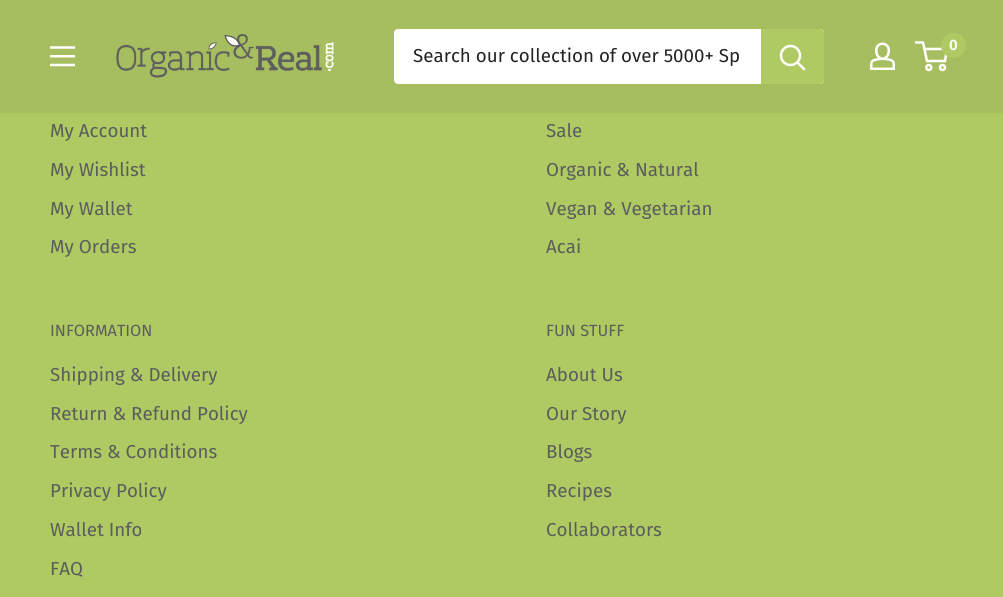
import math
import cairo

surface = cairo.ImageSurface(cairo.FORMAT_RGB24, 1003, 597)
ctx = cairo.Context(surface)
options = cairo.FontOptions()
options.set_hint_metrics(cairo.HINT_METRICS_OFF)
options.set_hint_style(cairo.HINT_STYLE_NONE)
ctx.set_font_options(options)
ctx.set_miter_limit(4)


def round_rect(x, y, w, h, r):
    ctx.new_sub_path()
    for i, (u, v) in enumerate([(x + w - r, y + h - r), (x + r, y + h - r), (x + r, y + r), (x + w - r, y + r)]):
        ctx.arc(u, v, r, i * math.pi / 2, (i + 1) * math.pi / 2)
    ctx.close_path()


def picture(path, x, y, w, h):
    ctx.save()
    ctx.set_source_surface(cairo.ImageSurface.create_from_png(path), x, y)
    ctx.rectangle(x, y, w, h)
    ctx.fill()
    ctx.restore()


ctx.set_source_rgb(0.686, 0.792, 0.384)
ctx.paint()
ctx.set_source_rgb(0.651, 0.745, 0.373)
ctx.rectangle(0, 0, 1003, 113)
ctx.fill()
picture("img1.png", 50, 46, 25, 21)
picture("img2.png", 116, 34, 218, 44)
ctx.set_source_rgb(1, 1, 1)
round_rect(394, 29, 430, 55, 4)
ctx.fill()
ctx.select_font_face("Fira Sans")
ctx.set_font_size(18.75)
ctx.set_source_rgb(0.137, 0.137, 0.137)
ctx.move_to(413, 62)
ctx.show_text("Search our collection of over 5000+ Sp")
ctx.set_source_rgb(0.686, 0.792, 0.384)
ctx.new_path()
ctx.move_to(761, 29)
ctx.line_to(820, 29)
ctx.curve_to(822, 29, 824, 31, 824, 33)
ctx.line_to(824, 80)
ctx.curve_to(824, 82, 822, 84, 820, 84)
ctx.line_to(761, 84)
ctx.close_path()
ctx.fill()
ctx.new_path()
ctx.move_to(804, 69)
ctx.line_to(797.5, 62.5)
ctx.set_source_rgb(1, 1, 1)
ctx.set_line_width(2.5)
ctx.set_line_cap(cairo.LINE_CAP_SQUARE)
ctx.stroke()
ctx.arc(790.5, 55.5, 9.5, 0, 2 * math.pi)
ctx.set_line_cap(cairo.LINE_CAP_BUTT)
ctx.stroke()
picture("img3.png", 870, 42, 25, 28)
ctx.arc(928.8, 67.5, 2.5, 0, 2 * math.pi)
ctx.stroke()
ctx.arc(942.5, 67.5, 2.5, 0, 2 * math.pi)
ctx.stroke()
ctx.new_path()
ctx.move_to(924, 49)
ctx.line_to(947, 49)
ctx.line_to(945, 61)
ctx.line_to(927, 61)
ctx.line_to(923, 42.5)
ctx.line_to(915, 42.5)
ctx.stroke()
ctx.set_source_rgb(0.686, 0.792, 0.384)
ctx.arc(953.5, 45.5, 12.5, 0, 2 * math.pi)
ctx.fill()
ctx.select_font_face("Fira Sans SemiBold")
ctx.set_font_size(15)
ctx.set_source_rgb(1, 1, 1)
ctx.move_to(949, 50)
ctx.show_text("0")
ctx.select_font_face("Fira Sans")
ctx.set_font_size(18.75)
ctx.set_source_rgb(0.357, 0.361, 0.361)
ctx.move_to(50, 137)
ctx.show_text("My Account")
ctx.move_to(50, 176)
ctx.show_text("My Wishlist")
ctx.move_to(50, 215)
ctx.show_text("My Wallet")
ctx.move_to(50, 253)
ctx.show_text("My Orders")
ctx.move_to(546, 137)
ctx.show_text("Sale")
ctx.move_to(546, 176)
ctx.show_text("Organic & Natural")
ctx.move_to(546, 215)
ctx.show_text("Vegan & Vegetarian")
ctx.move_to(546, 253)
ctx.show_text("Acai")
ctx.set_font_size(16.25)
ctx.move_to(50, 336)
ctx.show_text("INFORMATION")
ctx.set_font_size(18.75)
ctx.move_to(50, 381)
ctx.show_text("Shipping & Delivery")
ctx.move_to(50, 420)
ctx.show_text("Return & Refund Policy")
ctx.move_to(50, 458)
ctx.show_text("Terms & Conditions")
ctx.move_to(50, 497)
ctx.show_text("Privacy Policy")
ctx.move_to(50, 536)
ctx.show_text("Wallet Info")
ctx.move_to(50, 575)
ctx.show_text("FAQ")
ctx.set_font_size(16.25)
ctx.move_to(546, 336)
ctx.show_text("FUN STUFF")
ctx.set_font_size(18.75)
ctx.move_to(546, 381)
ctx.show_text("About Us")
ctx.move_to(546, 420)
ctx.show_text("Our Story")
ctx.move_to(546, 458)
ctx.show_text("Blogs")
ctx.move_to(546, 497)
ctx.show_text("Recipes")
ctx.move_to(546, 536)
ctx.show_text("Collaborators")
surface.write_to_png("page.png")
